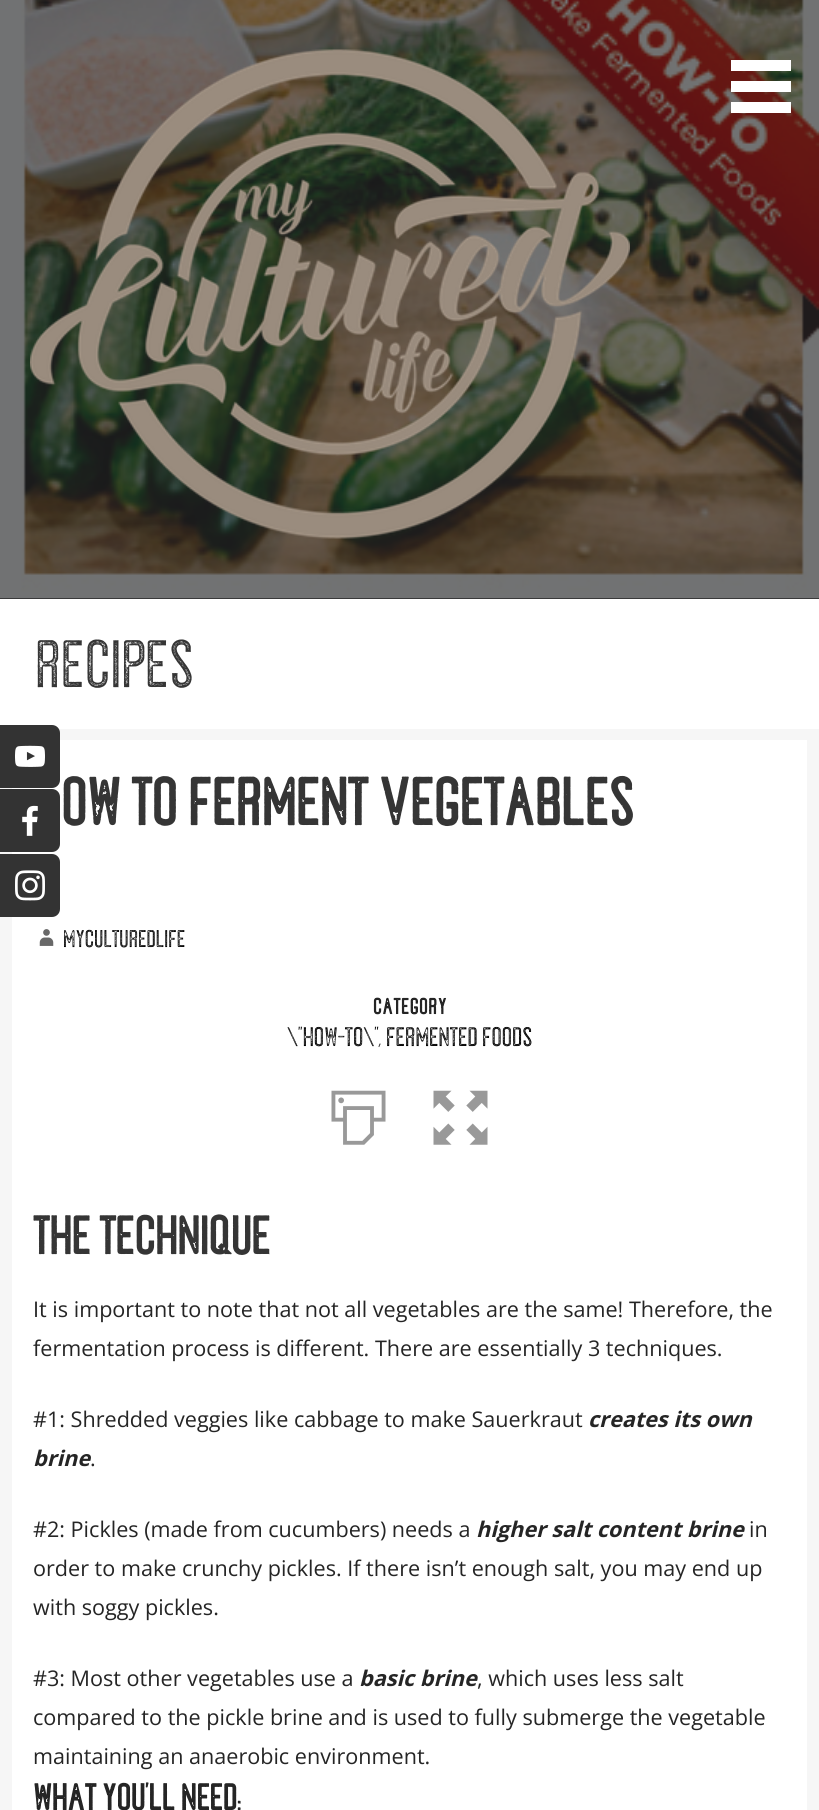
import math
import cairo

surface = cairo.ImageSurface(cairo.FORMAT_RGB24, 819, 1810)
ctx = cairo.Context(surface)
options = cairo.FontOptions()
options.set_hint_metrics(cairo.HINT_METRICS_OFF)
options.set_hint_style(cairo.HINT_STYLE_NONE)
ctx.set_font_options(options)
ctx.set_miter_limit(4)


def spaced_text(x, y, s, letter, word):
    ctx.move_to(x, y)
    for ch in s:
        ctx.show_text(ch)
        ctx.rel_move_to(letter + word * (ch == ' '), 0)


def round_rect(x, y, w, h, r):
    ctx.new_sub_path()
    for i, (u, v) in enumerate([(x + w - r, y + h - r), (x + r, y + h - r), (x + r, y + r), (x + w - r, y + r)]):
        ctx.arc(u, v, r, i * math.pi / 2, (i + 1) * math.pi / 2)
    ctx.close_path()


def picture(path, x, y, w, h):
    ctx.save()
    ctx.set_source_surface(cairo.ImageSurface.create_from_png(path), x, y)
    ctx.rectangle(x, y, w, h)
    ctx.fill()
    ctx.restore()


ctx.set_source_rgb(0.961, 0.961, 0.961)
ctx.paint()
ctx.set_source_rgb(1, 1, 1)
ctx.rectangle(0, 599, 819, 130)
ctx.fill()
ctx.rectangle(12, 740, 795, 1070)
ctx.fill()
ctx.set_source_rgb(0.2, 0.2, 0.2)
round_rect(-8, 725, 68, 63, 8)
ctx.fill()
picture("img1.png", 15, 745, 30, 22)
round_rect(-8, 789, 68, 63, 8)
ctx.fill()
picture("img2.png", 22, 805, 16, 31)
round_rect(-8, 854, 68, 63, 8)
ctx.fill()
picture("img3.png", 15, 870, 30, 31)
ctx.set_source_rgb(0, 0, 0)
ctx.rectangle(0, 598, 819, 1)
ctx.fill()
picture("img4.png", 0, 0, 819, 599)
picture("img5.png", 30, 49, 600, 490)
ctx.set_source_rgb(1, 1, 1)
ctx.rectangle(731, 60, 60, 11)
ctx.fill()
ctx.rectangle(731, 81, 60, 11)
ctx.fill()
ctx.rectangle(731, 102, 60, 11)
ctx.fill()
ctx.select_font_face("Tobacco")
ctx.set_font_size(54)
ctx.set_source_rgb(0.208, 0.208, 0.208)
ctx.move_to(35, 687)
ctx.show_text("Recipes")
ctx.select_font_face("Tobacco", cairo.FONT_SLANT_NORMAL, cairo.FONT_WEIGHT_BOLD)
ctx.move_to(61, 825)
ctx.show_text("OW TO FERMENT VEGETABLES")
picture("img6.png", 39, 929, 15, 17)
ctx.select_font_face("Tobacco")
ctx.set_font_size(19.5)
ctx.set_source_rgb(0, 0, 0)
ctx.move_to(63, 947)
ctx.show_text("myculturedlife")
ctx.select_font_face("Tobacco", cairo.FONT_SLANT_NORMAL, cairo.FONT_WEIGHT_BOLD)
ctx.set_font_size(18)
ctx.set_source_rgb(0.145, 0.145, 0.145)
spaced_text(373, 1014, "CATEGORY", 0.75, 0)
ctx.select_font_face("Tobacco")
ctx.set_font_size(21.6)
ctx.set_source_rgb(0, 0, 0)
ctx.move_to(287, 1046)
ctx.show_text("\\\"How-To\\\"")
ctx.set_source_rgb(0.145, 0.145, 0.145)
ctx.move_to(378, 1046)
ctx.show_text(",")
ctx.set_source_rgb(0, 0, 0)
ctx.move_to(386, 1046)
ctx.show_text("Fermented Foods")
picture("img7.png", 331, 1090, 55, 55)
picture("img8.png", 433, 1090, 55, 55)
ctx.select_font_face("Tobacco", cairo.FONT_SLANT_NORMAL, cairo.FONT_WEIGHT_BOLD)
ctx.set_font_size(43.25)
ctx.set_source_rgb(0.208, 0.208, 0.208)
ctx.move_to(33, 1254)
ctx.show_text("The Technique")
ctx.select_font_face("Open Sans")
ctx.set_font_size(21.6)
ctx.set_source_rgb(0.145, 0.145, 0.145)
ctx.move_to(33, 1317)
ctx.show_text("It is important to note that not all vegetables are the same! Therefore, the")
ctx.move_to(33, 1356)
ctx.show_text("fermentation process is different. There are essentially 3 techniques.")
ctx.move_to(33, 1427)
ctx.show_text("#1: Shredded veggies like cabbage to make Sauerkraut")
ctx.select_font_face("Open Sans", cairo.FONT_SLANT_ITALIC, cairo.FONT_WEIGHT_BOLD)
ctx.move_to(588, 1427)
ctx.show_text("creates its own")
ctx.move_to(33, 1466)
ctx.show_text("brine")
ctx.select_font_face("Open Sans")
ctx.move_to(90, 1466)
ctx.show_text(".")
ctx.move_to(33, 1537)
ctx.show_text("#2: Pickles (made from cucumbers) needs a")
ctx.select_font_face("Open Sans", cairo.FONT_SLANT_ITALIC, cairo.FONT_WEIGHT_BOLD)
ctx.move_to(476, 1537)
ctx.show_text("higher salt content brine")
ctx.select_font_face("Open Sans")
ctx.move_to(749, 1537)
ctx.show_text("in")
ctx.move_to(33, 1576)
ctx.show_text("order to make crunchy pickles. If there isn’t enough salt, you may end up")
ctx.move_to(33, 1615)
ctx.show_text("with soggy pickles.")
ctx.move_to(33, 1686)
ctx.show_text("#3: Most other vegetables use a")
ctx.select_font_face("Open Sans", cairo.FONT_SLANT_ITALIC, cairo.FONT_WEIGHT_BOLD)
ctx.move_to(359, 1686)
ctx.show_text("basic brine")
ctx.select_font_face("Open Sans")
ctx.move_to(477, 1686)
ctx.show_text(", which uses less salt")
ctx.move_to(33, 1725)
ctx.show_text("compared to the pickle brine and is used to fully submerge the vegetable")
ctx.move_to(33, 1764)
ctx.show_text("maintaining an anaerobic environment.")
ctx.select_font_face("Tobacco", cairo.FONT_SLANT_NORMAL, cairo.FONT_WEIGHT_BOLD)
ctx.set_font_size(30)
ctx.move_to(33, 1810)
ctx.show_text("WHAT YOU'LL NEED:")
surface.write_to_png("page.png")
